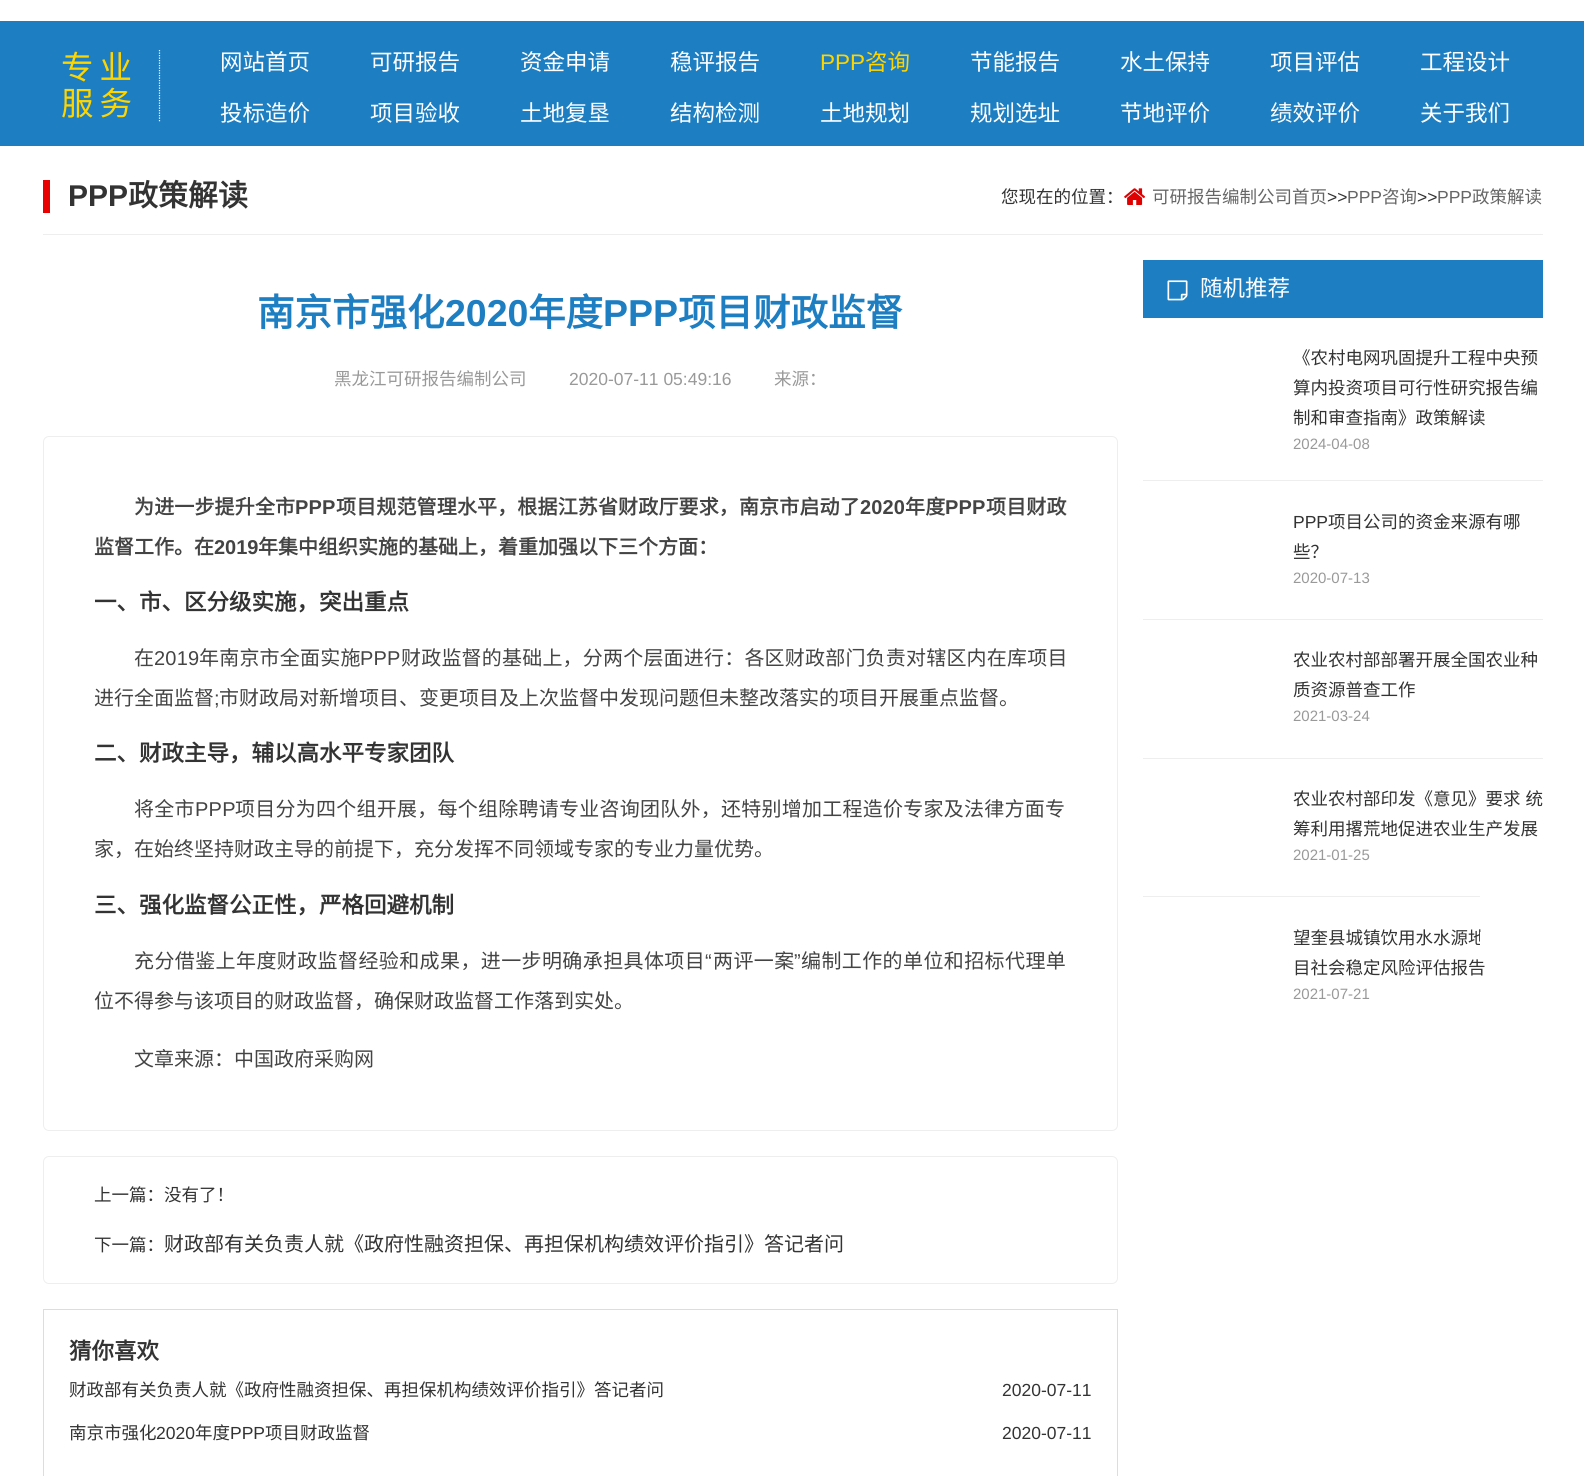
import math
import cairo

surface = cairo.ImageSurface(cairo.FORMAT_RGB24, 1584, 1476)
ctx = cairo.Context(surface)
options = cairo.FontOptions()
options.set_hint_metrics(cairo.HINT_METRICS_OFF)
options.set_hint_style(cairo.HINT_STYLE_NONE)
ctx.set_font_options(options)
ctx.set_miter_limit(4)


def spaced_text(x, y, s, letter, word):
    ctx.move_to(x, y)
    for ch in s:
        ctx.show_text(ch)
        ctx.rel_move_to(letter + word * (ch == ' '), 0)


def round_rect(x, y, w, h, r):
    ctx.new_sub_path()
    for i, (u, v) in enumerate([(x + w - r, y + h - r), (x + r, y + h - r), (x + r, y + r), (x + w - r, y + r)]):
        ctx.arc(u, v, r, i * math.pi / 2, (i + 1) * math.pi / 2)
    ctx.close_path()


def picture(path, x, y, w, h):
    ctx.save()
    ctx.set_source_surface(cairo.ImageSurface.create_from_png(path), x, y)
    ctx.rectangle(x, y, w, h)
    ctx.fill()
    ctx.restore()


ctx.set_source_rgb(1, 1, 1)
ctx.paint()
ctx.set_source_rgb(0.114, 0.494, 0.761)
ctx.rectangle(0, 21, 1584, 125)
ctx.fill()
ctx.new_path()
ctx.move_to(159.5, 50)
ctx.line_to(159.5, 122.5)
ctx.set_source_rgb(1, 1, 1)
ctx.set_line_width(1.2)
ctx.set_dash([1.25, 1.25])
ctx.stroke()
ctx.select_font_face("Noto Sans CJK SC")
ctx.set_font_size(32.5)
ctx.set_source_rgb(1, 0.835, 0)
spaced_text(61, 79, "专业", 6, 0)
spaced_text(61, 115, "服务", 6, 0)
ctx.set_font_size(22.5)
ctx.set_source_rgb(1, 1, 1)
ctx.move_to(220, 70)
ctx.show_text("网站首页")
ctx.move_to(370, 70)
ctx.show_text("可研报告")
ctx.move_to(520, 70)
ctx.show_text("资金申请")
ctx.move_to(670, 70)
ctx.show_text("稳评报告")
ctx.select_font_face("Liberation Sans")
ctx.set_source_rgb(1, 0.835, 0)
ctx.move_to(820, 70)
ctx.show_text("PPP")
ctx.select_font_face("Noto Sans CJK SC")
ctx.move_to(865, 70)
ctx.show_text("咨询")
ctx.set_source_rgb(1, 1, 1)
ctx.move_to(970, 70)
ctx.show_text("节能报告")
ctx.move_to(1120, 70)
ctx.show_text("水土保持")
ctx.move_to(1270, 70)
ctx.show_text("项目评估")
ctx.move_to(1420, 70)
ctx.show_text("工程设计")
ctx.move_to(220, 121)
ctx.show_text("投标造价")
ctx.move_to(370, 121)
ctx.show_text("项目验收")
ctx.move_to(520, 121)
ctx.show_text("土地复垦")
ctx.move_to(670, 121)
ctx.show_text("结构检测")
ctx.move_to(820, 121)
ctx.show_text("土地规划")
ctx.move_to(970, 121)
ctx.show_text("规划选址")
ctx.move_to(1120, 121)
ctx.show_text("节地评价")
ctx.move_to(1270, 121)
ctx.show_text("绩效评价")
ctx.move_to(1420, 121)
ctx.show_text("关于我们")
ctx.set_source_rgb(0.933, 0.933, 0.933)
ctx.rectangle(43, 234, 1500, 1)
ctx.fill()
ctx.set_source_rgb(0.914, 0, 0)
ctx.rectangle(43, 180, 7, 33)
ctx.fill()
ctx.select_font_face("Liberation Sans", cairo.FONT_SLANT_NORMAL, cairo.FONT_WEIGHT_BOLD)
ctx.set_font_size(30)
ctx.set_source_rgb(0.2, 0.2, 0.2)
ctx.move_to(68, 206)
ctx.show_text("PPP")
ctx.select_font_face("Noto Sans CJK SC", cairo.FONT_SLANT_NORMAL, cairo.FONT_WEIGHT_BOLD)
ctx.move_to(128, 206)
ctx.show_text("政策解读")
ctx.select_font_face("Noto Sans CJK SC")
ctx.set_font_size(17.5)
ctx.move_to(1001, 203)
ctx.show_text("您现在的位置：")
picture("img1.png", 1124, 188, 21, 17)
ctx.set_source_rgb(0.4, 0.4, 0.4)
ctx.move_to(1152, 203)
ctx.show_text("可研报告编制公司首页")
ctx.select_font_face("Liberation Sans")
ctx.set_source_rgb(0.2, 0.2, 0.2)
ctx.move_to(1327, 203)
ctx.show_text(">>")
ctx.set_source_rgb(0.4, 0.4, 0.4)
ctx.move_to(1347, 203)
ctx.show_text("PPP")
ctx.select_font_face("Noto Sans CJK SC")
ctx.move_to(1382, 203)
ctx.show_text("咨询")
ctx.select_font_face("Liberation Sans")
ctx.set_source_rgb(0.2, 0.2, 0.2)
ctx.move_to(1417, 203)
ctx.show_text(">>")
ctx.set_source_rgb(0.4, 0.4, 0.4)
ctx.move_to(1437, 203)
ctx.show_text("PPP")
ctx.select_font_face("Noto Sans CJK SC")
ctx.move_to(1472, 203)
ctx.show_text("政策解读")
ctx.select_font_face("Noto Sans CJK SC", cairo.FONT_SLANT_NORMAL, cairo.FONT_WEIGHT_BOLD)
ctx.set_font_size(37.5)
ctx.set_source_rgb(0.114, 0.494, 0.761)
ctx.move_to(257, 326)
ctx.show_text("南京市强化")
ctx.select_font_face("Liberation Sans", cairo.FONT_SLANT_NORMAL, cairo.FONT_WEIGHT_BOLD)
ctx.move_to(445, 326)
ctx.show_text("2020")
ctx.select_font_face("Noto Sans CJK SC", cairo.FONT_SLANT_NORMAL, cairo.FONT_WEIGHT_BOLD)
ctx.move_to(528, 326)
ctx.show_text("年度")
ctx.select_font_face("Liberation Sans", cairo.FONT_SLANT_NORMAL, cairo.FONT_WEIGHT_BOLD)
ctx.move_to(603, 326)
ctx.show_text("PPP")
ctx.select_font_face("Noto Sans CJK SC", cairo.FONT_SLANT_NORMAL, cairo.FONT_WEIGHT_BOLD)
ctx.move_to(678, 326)
ctx.show_text("项目财政监督")
ctx.select_font_face("Noto Sans CJK SC")
ctx.set_font_size(17.5)
ctx.set_source_rgb(0.6, 0.6, 0.6)
ctx.move_to(334, 385)
ctx.show_text("黑龙江可研报告编制公司")
ctx.select_font_face("Liberation Sans")
ctx.move_to(569, 385)
ctx.show_text("2020-07-11 05:49:16")
ctx.select_font_face("Noto Sans CJK SC")
ctx.move_to(774, 385)
ctx.show_text("来源：")
round_rect(43.5, 436.5, 1074, 694, 5.5)
ctx.set_source_rgb(0.933, 0.933, 0.933)
ctx.set_line_width(1)
ctx.set_dash([])
ctx.stroke()
ctx.select_font_face("Noto Sans CJK SC", cairo.FONT_SLANT_NORMAL, cairo.FONT_WEIGHT_BOLD)
ctx.set_font_size(20)
ctx.set_source_rgb(0.267, 0.267, 0.267)
spaced_text(134, 514, "为进一步提升全市", 0.15, 0)
ctx.select_font_face("Liberation Sans", cairo.FONT_SLANT_NORMAL, cairo.FONT_WEIGHT_BOLD)
spaced_text(295, 514, "PPP", 0.15, 0)
ctx.select_font_face("Noto Sans CJK SC", cairo.FONT_SLANT_NORMAL, cairo.FONT_WEIGHT_BOLD)
spaced_text(336, 514, "项目规范管理水平，根据江苏省财政厅要求，南京市启动了", 0.15, 0)
ctx.select_font_face("Liberation Sans", cairo.FONT_SLANT_NORMAL, cairo.FONT_WEIGHT_BOLD)
spaced_text(860, 514, "2020", 0.15, 0)
ctx.select_font_face("Noto Sans CJK SC", cairo.FONT_SLANT_NORMAL, cairo.FONT_WEIGHT_BOLD)
spaced_text(905, 514, "年度", 0.15, 0)
ctx.select_font_face("Liberation Sans", cairo.FONT_SLANT_NORMAL, cairo.FONT_WEIGHT_BOLD)
spaced_text(945, 514, "PPP", 0.15, 0)
ctx.select_font_face("Noto Sans CJK SC", cairo.FONT_SLANT_NORMAL, cairo.FONT_WEIGHT_BOLD)
spaced_text(986, 514, "项目财政", 0.15, 0)
ctx.move_to(94, 554)
ctx.show_text("监督工作。在")
ctx.select_font_face("Liberation Sans", cairo.FONT_SLANT_NORMAL, cairo.FONT_WEIGHT_BOLD)
ctx.move_to(214, 554)
ctx.show_text("2019")
ctx.select_font_face("Noto Sans CJK SC", cairo.FONT_SLANT_NORMAL, cairo.FONT_WEIGHT_BOLD)
ctx.move_to(258, 554)
ctx.show_text("年集中组织实施的基础上，着重加强以下三个方面：")
ctx.set_font_size(22.5)
ctx.set_source_rgb(0.2, 0.2, 0.2)
ctx.move_to(94, 610)
ctx.show_text("一、市、区分级实施，突出重点")
ctx.select_font_face("Noto Sans CJK SC")
ctx.set_font_size(20)
ctx.set_source_rgb(0.267, 0.267, 0.267)
spaced_text(134, 665, "在", 0.2, 0)
ctx.select_font_face("Liberation Sans")
spaced_text(154, 665, "2019", 0.2, 0)
ctx.select_font_face("Noto Sans CJK SC")
spaced_text(199, 665, "年南京市全面实施", 0.2, 0)
ctx.select_font_face("Liberation Sans")
spaced_text(360, 665, "PPP", 0.2, 0)
ctx.select_font_face("Noto Sans CJK SC")
spaced_text(401, 665, "财政监督的基础上，分两个层面进行：各区财政部门负责对辖区内在库项目", 0.2, 0)
ctx.move_to(94, 705)
ctx.show_text("进行全面监督")
ctx.select_font_face("Liberation Sans")
ctx.move_to(214, 705)
ctx.show_text(";")
ctx.select_font_face("Noto Sans CJK SC")
ctx.move_to(219, 705)
ctx.show_text("市财政局对新增项目、变更项目及上次监督中发现问题但未整改落实的项目开展重点监督。")
ctx.select_font_face("Noto Sans CJK SC", cairo.FONT_SLANT_NORMAL, cairo.FONT_WEIGHT_BOLD)
ctx.set_font_size(22.5)
ctx.set_source_rgb(0.2, 0.2, 0.2)
ctx.move_to(94, 761)
ctx.show_text("二、财政主导，辅以高水平专家团队")
ctx.select_font_face("Noto Sans CJK SC")
ctx.set_font_size(20)
ctx.set_source_rgb(0.267, 0.267, 0.267)
spaced_text(134, 816, "将全市", 0.25, 0)
ctx.select_font_face("Liberation Sans")
spaced_text(195, 816, "PPP", 0.25, 0)
ctx.select_font_face("Noto Sans CJK SC")
spaced_text(235, 816, "项目分为四个组开展，每个组除聘请专业咨询团队外，还特别增加工程造价专家及法律方面专", 0.25, 0)
ctx.move_to(94, 856)
ctx.show_text("家，在始终坚持财政主导的前提下，充分发挥不同领域专家的专业力量优势。")
ctx.select_font_face("Noto Sans CJK SC", cairo.FONT_SLANT_NORMAL, cairo.FONT_WEIGHT_BOLD)
ctx.set_font_size(22.5)
ctx.set_source_rgb(0.2, 0.2, 0.2)
ctx.move_to(94, 913)
ctx.show_text("三、强化监督公正性，严格回避机制")
ctx.select_font_face("Noto Sans CJK SC")
ctx.set_font_size(20)
ctx.set_source_rgb(0.267, 0.267, 0.267)
spaced_text(134, 968, "充分借鉴上年度财政监督经验和成果，进一步明确承担具体项目", 0.4, 0)
ctx.select_font_face("Liberation Sans")
spaced_text(705, 968, "“", 0.4, 0)
ctx.select_font_face("Noto Sans CJK SC")
spaced_text(713, 968, "两评一案", 0.4, 0)
ctx.select_font_face("Liberation Sans")
spaced_text(794, 968, "”", 0.4, 0)
ctx.select_font_face("Noto Sans CJK SC")
spaced_text(801, 968, "编制工作的单位和招标代理单", 0.4, 0)
ctx.move_to(94, 1008)
ctx.show_text("位不得参与该项目的财政监督，确保财政监督工作落到实处。")
ctx.move_to(134, 1066)
ctx.show_text("文章来源：中国政府采购网")
round_rect(43.5, 1156.5, 1074, 127, 5.5)
ctx.set_source_rgb(0.933, 0.933, 0.933)
ctx.stroke()
ctx.set_font_size(17.5)
ctx.set_source_rgb(0.2, 0.2, 0.2)
ctx.move_to(94, 1201)
ctx.show_text("上一篇：没有了！")
ctx.move_to(94, 1251)
ctx.show_text("下一篇：")
ctx.set_font_size(20)
ctx.move_to(164, 1251)
ctx.show_text("财政部有关负责人就《政府性融资担保、再担保机构绩效评价指引》答记者问")
ctx.rectangle(43.5, 1309.5, 1074, 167)
ctx.set_source_rgb(0.867, 0.867, 0.867)
ctx.stroke()
ctx.select_font_face("Noto Sans CJK SC", cairo.FONT_SLANT_NORMAL, cairo.FONT_WEIGHT_BOLD)
ctx.set_font_size(22.5)
ctx.set_source_rgb(0.2, 0.2, 0.2)
ctx.move_to(69, 1359)
ctx.show_text("猜你喜欢")
ctx.select_font_face("Noto Sans CJK SC")
ctx.set_font_size(17.5)
ctx.move_to(69, 1396)
ctx.show_text("财政部有关负责人就《政府性融资担保、再担保机构绩效评价指引》答记者问")
ctx.select_font_face("Liberation Sans")
ctx.move_to(1002, 1396)
ctx.show_text("2020-07-11")
ctx.select_font_face("Noto Sans CJK SC")
ctx.move_to(69, 1439)
ctx.show_text("南京市强化")
ctx.select_font_face("Liberation Sans")
ctx.move_to(156, 1439)
ctx.show_text("2020")
ctx.select_font_face("Noto Sans CJK SC")
ctx.move_to(195, 1439)
ctx.show_text("年度")
ctx.select_font_face("Liberation Sans")
ctx.move_to(230, 1439)
ctx.show_text("PPP")
ctx.select_font_face("Noto Sans CJK SC")
ctx.move_to(265, 1439)
ctx.show_text("项目财政监督")
ctx.select_font_face("Liberation Sans")
ctx.move_to(1002, 1439)
ctx.show_text("2020-07-11")
ctx.set_source_rgb(0.114, 0.494, 0.761)
ctx.rectangle(1143, 260, 400, 58)
ctx.fill()
picture("img2.png", 1167, 280, 21, 21)
ctx.select_font_face("Noto Sans CJK SC")
ctx.set_font_size(22.5)
ctx.set_source_rgb(1, 1, 1)
ctx.move_to(1200, 296)
ctx.show_text("随机推荐")
ctx.set_source_rgb(0.933, 0.933, 0.933)
ctx.rectangle(1143, 480, 400, 1)
ctx.fill()
ctx.set_font_size(17.5)
ctx.set_source_rgb(0.2, 0.2, 0.2)
ctx.move_to(1293, 364)
ctx.show_text("《农村电网巩固提升工程中央预")
ctx.move_to(1293, 394)
ctx.show_text("算内投资项目可行性研究报告编")
ctx.move_to(1293, 424)
ctx.show_text("制和审查指南》政策解读")
ctx.select_font_face("Liberation Sans")
ctx.set_font_size(15)
ctx.set_source_rgb(0.6, 0.6, 0.6)
ctx.move_to(1293, 449)
ctx.show_text("2024-04-08")
ctx.set_source_rgb(0.933, 0.933, 0.933)
ctx.rectangle(1143, 619, 400, 1)
ctx.fill()
ctx.set_font_size(17.5)
ctx.set_source_rgb(0.2, 0.2, 0.2)
ctx.move_to(1293, 528)
ctx.show_text("PPP")
ctx.select_font_face("Noto Sans CJK SC")
ctx.move_to(1328, 528)
ctx.show_text("项目公司的资金来源有哪")
ctx.move_to(1293, 558)
ctx.show_text("些？")
ctx.select_font_face("Liberation Sans")
ctx.set_font_size(15)
ctx.set_source_rgb(0.6, 0.6, 0.6)
ctx.move_to(1293, 583)
ctx.show_text("2020-07-13")
ctx.set_source_rgb(0.933, 0.933, 0.933)
ctx.rectangle(1143, 758, 400, 1)
ctx.fill()
ctx.select_font_face("Noto Sans CJK SC")
ctx.set_font_size(17.5)
ctx.set_source_rgb(0.2, 0.2, 0.2)
ctx.move_to(1293, 666)
ctx.show_text("农业农村部部署开展全国农业种")
ctx.move_to(1293, 696)
ctx.show_text("质资源普查工作")
ctx.select_font_face("Liberation Sans")
ctx.set_font_size(15)
ctx.set_source_rgb(0.6, 0.6, 0.6)
ctx.move_to(1293, 721)
ctx.show_text("2021-03-24")
ctx.set_source_rgb(0.933, 0.933, 0.933)
ctx.rectangle(1143, 896, 337, 1)
ctx.fill()
ctx.select_font_face("Noto Sans CJK SC")
ctx.set_font_size(17.5)
ctx.set_source_rgb(0.2, 0.2, 0.2)
spaced_text(1293, 805, "农业农村部印发《意见》要求 统", 0, 1)
ctx.move_to(1293, 835)
ctx.show_text("筹利用撂荒地促进农业生产发展")
ctx.select_font_face("Liberation Sans")
ctx.set_font_size(15)
ctx.set_source_rgb(0.6, 0.6, 0.6)
ctx.move_to(1293, 860)
ctx.show_text("2021-01-25")
ctx.select_font_face("Noto Sans CJK SC")
ctx.set_font_size(17.5)
ctx.set_source_rgb(0.2, 0.2, 0.2)
ctx.move_to(1293, 944)
ctx.show_text("望奎县城镇饮用水水源地")
ctx.move_to(1293, 974)
ctx.show_text("目社会稳定风险评估报告")
ctx.select_font_face("Liberation Sans")
ctx.set_font_size(15)
ctx.set_source_rgb(0.6, 0.6, 0.6)
ctx.move_to(1293, 999)
ctx.show_text("2021-07-21")
ctx.set_source_rgb(1, 1, 1)
ctx.rectangle(1480, 932, 5, 13)
ctx.fill()
surface.write_to_png("page.png")
